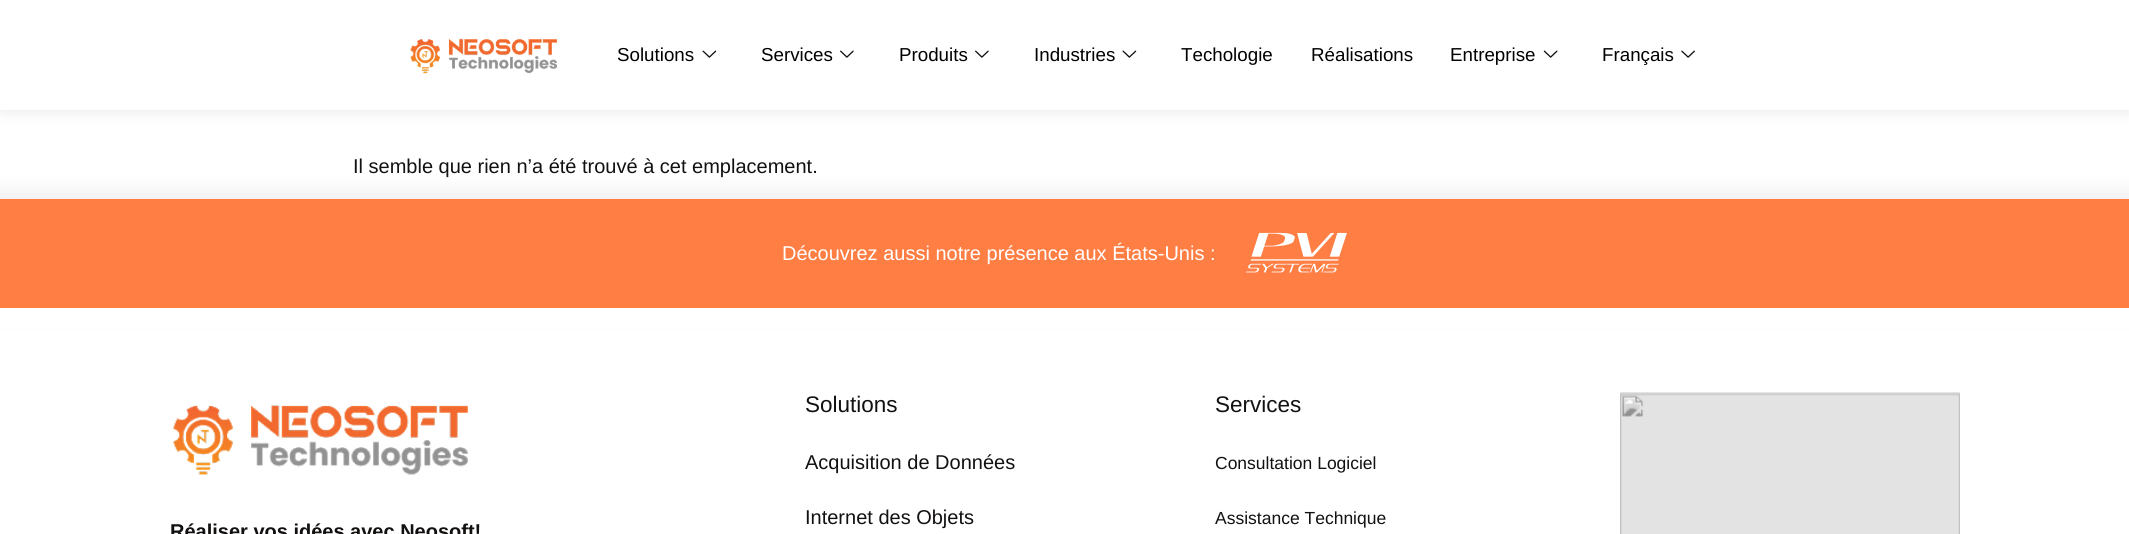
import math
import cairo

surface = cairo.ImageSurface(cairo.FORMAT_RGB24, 2129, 534)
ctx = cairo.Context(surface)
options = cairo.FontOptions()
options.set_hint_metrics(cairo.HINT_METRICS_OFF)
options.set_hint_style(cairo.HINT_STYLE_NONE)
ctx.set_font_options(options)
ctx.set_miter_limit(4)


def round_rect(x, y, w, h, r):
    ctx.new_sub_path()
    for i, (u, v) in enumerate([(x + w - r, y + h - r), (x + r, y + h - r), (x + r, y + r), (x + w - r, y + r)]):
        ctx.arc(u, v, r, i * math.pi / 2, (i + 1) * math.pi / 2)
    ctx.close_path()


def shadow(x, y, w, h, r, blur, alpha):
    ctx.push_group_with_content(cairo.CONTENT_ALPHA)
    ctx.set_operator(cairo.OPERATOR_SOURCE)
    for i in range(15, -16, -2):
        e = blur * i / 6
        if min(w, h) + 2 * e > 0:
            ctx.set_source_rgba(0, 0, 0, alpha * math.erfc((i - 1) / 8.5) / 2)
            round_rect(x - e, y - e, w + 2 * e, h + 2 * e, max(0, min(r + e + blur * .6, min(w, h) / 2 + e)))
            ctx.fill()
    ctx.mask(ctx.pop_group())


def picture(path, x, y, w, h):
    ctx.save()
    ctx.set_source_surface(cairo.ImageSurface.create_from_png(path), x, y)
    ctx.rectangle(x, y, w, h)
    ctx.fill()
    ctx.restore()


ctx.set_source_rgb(1, 1, 1)
ctx.paint()
ctx.set_source_rgb(0, 0, 0)
shadow(0, 0, 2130, 110, 0, 7.5, 0.1)
ctx.set_source_rgb(1, 1, 1)
ctx.rectangle(0, 0, 2129, 110)
ctx.fill()
picture("img1.png", 410, 38, 147, 36)
ctx.select_font_face("Liberation Sans")
ctx.set_font_size(18.75)
ctx.set_source_rgb(0, 0, 0)
ctx.move_to(617, 61)
ctx.show_text("Solutions")
picture("img2.png", 702, 50, 15, 8)
ctx.move_to(761, 61)
ctx.show_text("Services")
picture("img3.png", 840, 50, 14, 8)
ctx.move_to(899, 61)
ctx.show_text("Produits")
picture("img3.png", 975, 50, 14, 8)
ctx.move_to(1034, 61)
ctx.show_text("Industries")
picture("img2.png", 1122, 50, 15, 8)
ctx.move_to(1181, 61)
ctx.show_text("Techologie")
ctx.move_to(1311, 61)
ctx.show_text("Réalisations")
ctx.move_to(1450, 61)
ctx.show_text("Entreprise")
picture("img4.png", 1543, 50, 15, 8)
ctx.move_to(1602, 61)
ctx.show_text("Français")
picture("img5.png", 1681, 50, 14, 8)
ctx.set_font_size(20)
ctx.set_source_rgb(0.075, 0.063, 0.063)
ctx.move_to(353, 173)
ctx.show_text("Il semble que rien n’a été trouvé à cet emplacement.")
ctx.set_source_rgb(0, 0, 0)
shadow(-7, 189, 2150, 129, 0, 9, 0.06)
ctx.set_source_rgb(1, 0.494, 0.267)
ctx.rectangle(0, 199, 2129, 109)
ctx.fill()
ctx.set_source_rgb(1, 1, 1)
ctx.move_to(782, 260)
ctx.show_text("Découvrez aussi notre présence aux États-Unis :")
picture("img6.png", 1246, 232, 101, 41)
ctx.rectangle(0, 308, 2129, 19)
ctx.fill()
picture("img7.png", 173, 404, 295, 71)
ctx.select_font_face("Liberation Sans", cairo.FONT_SLANT_NORMAL, cairo.FONT_WEIGHT_BOLD)
ctx.set_source_rgb(0.075, 0.063, 0.063)
ctx.move_to(170, 538)
ctx.show_text("Réaliser vos idées avec Neosoft!")
ctx.select_font_face("Liberation Sans")
ctx.set_font_size(22.5)
ctx.move_to(805, 412)
ctx.show_text("Solutions")
ctx.set_font_size(20)
ctx.move_to(805, 469)
ctx.show_text("Acquisition de Données")
ctx.move_to(805, 524)
ctx.show_text("Internet des Objets")
ctx.set_font_size(22.5)
ctx.move_to(1215, 412)
ctx.show_text("Services")
ctx.set_font_size(17.5)
ctx.move_to(1215, 469)
ctx.show_text("Consultation Logiciel")
ctx.move_to(1215, 524)
ctx.show_text("Assistance Technique")
picture("img8.png", 1620, 392, 340, 142)
surface.write_to_png("page.png")
